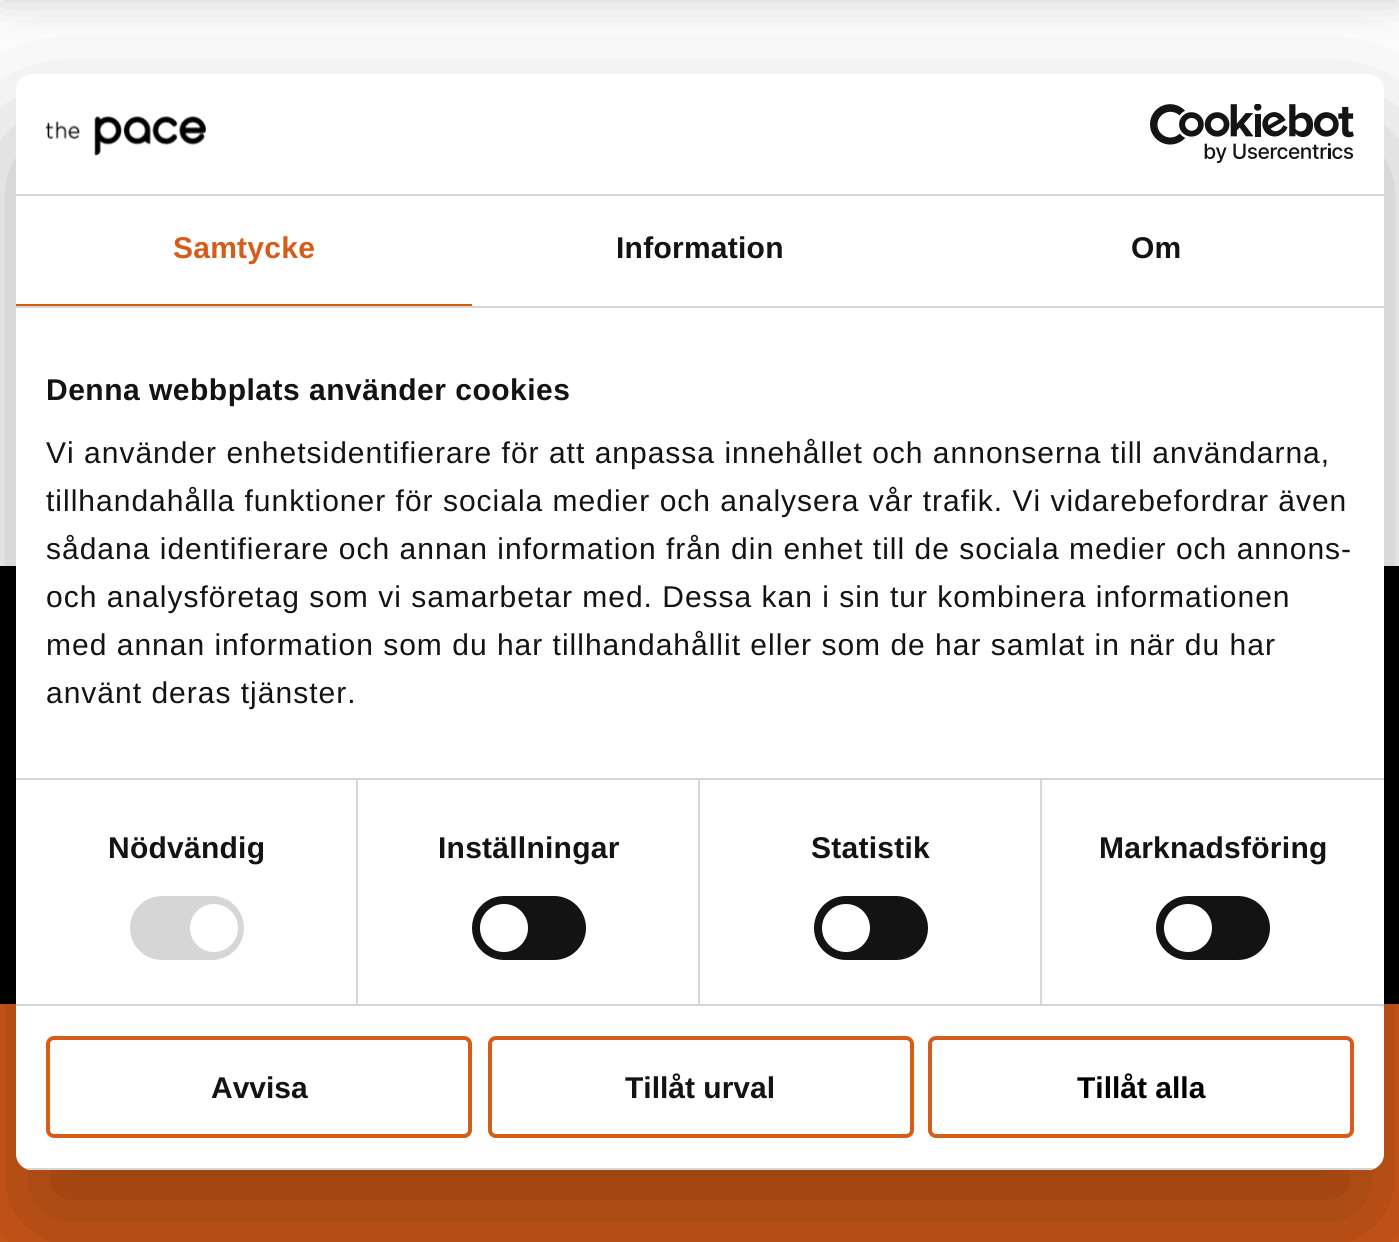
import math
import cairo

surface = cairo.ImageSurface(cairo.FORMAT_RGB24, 1399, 1242)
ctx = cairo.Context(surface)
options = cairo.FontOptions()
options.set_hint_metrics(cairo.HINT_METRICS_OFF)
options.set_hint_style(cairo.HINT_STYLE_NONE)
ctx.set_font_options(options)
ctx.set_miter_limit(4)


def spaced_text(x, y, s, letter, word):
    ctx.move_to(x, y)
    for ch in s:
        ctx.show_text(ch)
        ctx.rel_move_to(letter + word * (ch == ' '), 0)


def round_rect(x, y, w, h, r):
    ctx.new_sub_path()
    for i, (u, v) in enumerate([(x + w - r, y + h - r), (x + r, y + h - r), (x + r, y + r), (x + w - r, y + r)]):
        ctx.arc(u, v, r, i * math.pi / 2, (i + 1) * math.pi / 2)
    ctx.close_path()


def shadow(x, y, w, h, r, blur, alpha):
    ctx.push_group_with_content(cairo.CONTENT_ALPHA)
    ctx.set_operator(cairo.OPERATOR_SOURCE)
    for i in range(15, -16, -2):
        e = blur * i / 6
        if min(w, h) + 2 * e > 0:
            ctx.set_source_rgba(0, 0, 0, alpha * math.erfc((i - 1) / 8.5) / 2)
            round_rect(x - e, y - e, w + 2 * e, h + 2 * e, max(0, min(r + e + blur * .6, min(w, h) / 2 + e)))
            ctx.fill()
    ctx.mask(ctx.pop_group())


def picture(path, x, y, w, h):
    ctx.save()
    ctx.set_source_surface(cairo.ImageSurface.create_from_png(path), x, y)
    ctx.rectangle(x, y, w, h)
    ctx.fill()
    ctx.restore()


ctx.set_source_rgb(1, 1, 1)
ctx.paint()
ctx.set_source_rgb(0, 0, 0)
shadow(0, -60, 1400, 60, 0, 20, 0.2)
ctx.set_source_rgb(0, 0, 0)
ctx.rectangle(0, 566, 1399, 438)
ctx.fill()
ctx.set_source_rgb(0.835, 0.361, 0.098)
ctx.rectangle(0, 1004, 1399, 238)
ctx.fill()
ctx.set_source_rgb(0, 0, 0)
shadow(16, 138, 1368, 1096, 16, 68, 0.3)
ctx.set_source_rgb(1, 1, 1)
round_rect(16, 74, 1368, 1096, 16)
ctx.fill()
ctx.set_source_rgb(0.839, 0.839, 0.839)
ctx.rectangle(16, 194, 1368, 2)
ctx.fill()
picture("img1.png", 46, 116, 160, 40)
picture("img2.png", 1150, 104, 204, 60)
ctx.rectangle(16, 306, 1368, 2)
ctx.fill()
ctx.set_source_rgb(0.839, 0.361, 0.098)
ctx.rectangle(16, 304, 456, 2)
ctx.fill()
ctx.select_font_face("Liberation Sans", cairo.FONT_SLANT_NORMAL, cairo.FONT_WEIGHT_BOLD)
ctx.set_font_size(30)
spaced_text(173, 258, "Samtycke", 0.25, 0)
ctx.set_source_rgb(0.078, 0.078, 0.078)
spaced_text(616, 258, "Information", 0.25, 0)
spaced_text(1131, 258, "Om", 0.25, 0)
ctx.set_source_rgb(0.839, 0.839, 0.839)
ctx.rectangle(16, 778, 1368, 2)
ctx.fill()
ctx.set_source_rgb(0.078, 0.078, 0.078)
spaced_text(46, 400, "Denna webbplats använder cookies", 0.5, 0)
ctx.select_font_face("Liberation Sans")
spaced_text(46, 463, "Vi använder enhetsidentifierare för att anpassa innehållet och annonserna till användarna,", 1, 0)
spaced_text(46, 511, "tillhandahålla funktioner för sociala medier och analysera vår trafik. Vi vidarebefordrar även", 1, 0)
spaced_text(46, 559, "sådana identifierare och annan information från din enhet till de sociala medier och annons-", 1, 0)
spaced_text(46, 607, "och analysföretag som vi samarbetar med. Dessa kan i sin tur kombinera informationen", 1, 0)
spaced_text(46, 655, "med annan information som du har tillhandahållit eller som de har samlat in när du har", 1, 0)
spaced_text(46, 703, "använt deras tjänster.", 1, 0)
ctx.set_source_rgb(0.839, 0.839, 0.839)
ctx.rectangle(16, 1004, 1368, 2)
ctx.fill()
ctx.rectangle(356, 780, 2, 224)
ctx.fill()
ctx.select_font_face("Liberation Sans", cairo.FONT_SLANT_NORMAL, cairo.FONT_WEIGHT_BOLD)
ctx.set_source_rgb(0.078, 0.078, 0.078)
spaced_text(108, 858, "Nödvändig", 0.25, 0)
ctx.set_source_rgb(0.839, 0.839, 0.839)
round_rect(130, 896, 114, 64, 32)
ctx.fill()
ctx.set_source_rgb(1, 1, 1)
ctx.arc(214, 928, 24, 0, 2 * math.pi)
ctx.fill()
ctx.set_source_rgb(0.839, 0.839, 0.839)
ctx.rectangle(698, 780, 2, 224)
ctx.fill()
ctx.set_source_rgb(0.078, 0.078, 0.078)
spaced_text(438, 858, "Inställningar", 0.25, 0)
round_rect(472, 896, 114, 64, 32)
ctx.fill()
ctx.set_source_rgb(1, 1, 1)
ctx.arc(504, 928, 24, 0, 2 * math.pi)
ctx.fill()
ctx.set_source_rgb(0.839, 0.839, 0.839)
ctx.rectangle(1040, 780, 2, 224)
ctx.fill()
ctx.set_source_rgb(0.078, 0.078, 0.078)
spaced_text(811, 858, "Statistik", 0.25, 0)
round_rect(814, 896, 114, 64, 32)
ctx.fill()
ctx.set_source_rgb(1, 1, 1)
ctx.arc(846, 928, 24, 0, 2 * math.pi)
ctx.fill()
ctx.set_source_rgb(0.078, 0.078, 0.078)
spaced_text(1099, 858, "Marknadsföring", 0.25, 0)
round_rect(1156, 896, 114, 64, 32)
ctx.fill()
ctx.set_source_rgb(1, 1, 1)
ctx.arc(1188, 928, 24, 0, 2 * math.pi)
ctx.fill()
ctx.save()
round_rect(16, 74, 1368, 1096, 16)
ctx.clip()
ctx.set_source_rgb(0.839, 0.839, 0.839)
ctx.rectangle(16, 1168, 1368, 2)
ctx.fill()
ctx.restore()
round_rect(48, 1038, 422, 98, 6)
ctx.set_source_rgb(0.839, 0.361, 0.098)
ctx.set_line_width(4)
ctx.stroke()
ctx.set_source_rgb(0.078, 0.078, 0.078)
ctx.move_to(211, 1098)
ctx.show_text("Avvisa")
round_rect(490, 1038, 422, 98, 6)
ctx.set_source_rgb(0.839, 0.361, 0.098)
ctx.stroke()
ctx.set_source_rgb(0.078, 0.078, 0.078)
ctx.move_to(625, 1098)
ctx.show_text("Tillåt urval")
round_rect(930, 1038, 422, 98, 6)
ctx.set_source_rgb(0.839, 0.361, 0.098)
ctx.stroke()
ctx.set_source_rgb(0, 0, 0)
ctx.move_to(1077, 1098)
ctx.show_text("Tillåt alla")
surface.write_to_png("page.png")
